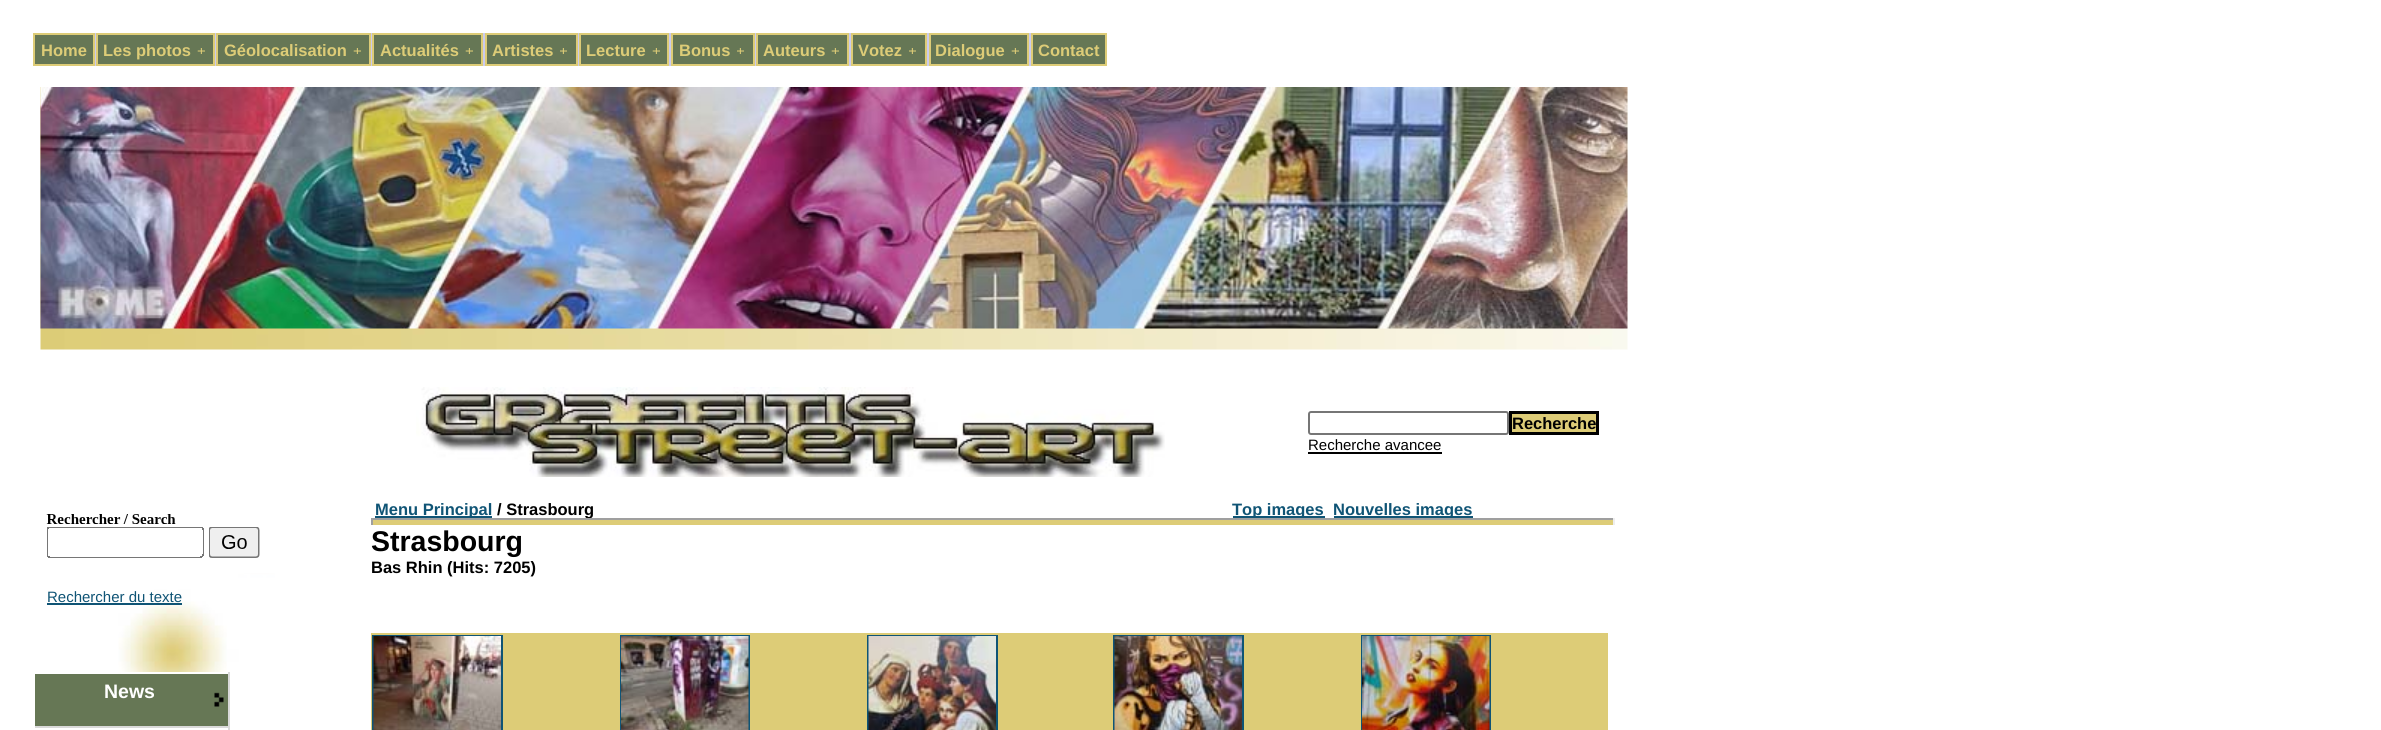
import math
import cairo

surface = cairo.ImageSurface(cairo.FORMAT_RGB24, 2381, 730)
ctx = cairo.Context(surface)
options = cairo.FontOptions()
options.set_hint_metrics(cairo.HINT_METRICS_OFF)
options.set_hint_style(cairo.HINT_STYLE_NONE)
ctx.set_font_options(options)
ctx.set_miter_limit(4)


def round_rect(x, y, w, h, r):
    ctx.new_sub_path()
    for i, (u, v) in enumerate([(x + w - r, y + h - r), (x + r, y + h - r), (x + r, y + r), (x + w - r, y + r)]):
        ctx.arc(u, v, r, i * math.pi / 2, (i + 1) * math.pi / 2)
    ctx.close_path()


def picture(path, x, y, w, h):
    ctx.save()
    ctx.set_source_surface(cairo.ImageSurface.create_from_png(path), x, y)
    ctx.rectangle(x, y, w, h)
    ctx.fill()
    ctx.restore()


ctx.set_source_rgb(1, 1, 1)
ctx.paint()
ctx.set_source_rgb(0.796, 0.796, 0.937)
ctx.rectangle(95, 33, 1, 33)
ctx.fill()
ctx.set_source_rgb(0.4, 0.467, 0.333)
ctx.rectangle(34, 34, 60, 31)
ctx.fill_preserve()
ctx.set_source_rgb(0.867, 0.8, 0.467)
ctx.stroke()
ctx.select_font_face("Liberation Sans", cairo.FONT_SLANT_NORMAL, cairo.FONT_WEIGHT_BOLD)
ctx.set_font_size(16.5)
ctx.move_to(41, 56)
ctx.show_text("Home")
ctx.set_source_rgb(0.796, 0.796, 0.937)
ctx.rectangle(215, 33, 1, 33)
ctx.fill()
ctx.set_source_rgb(0.4, 0.467, 0.333)
ctx.rectangle(97, 34, 117, 31)
ctx.fill_preserve()
ctx.set_source_rgb(0.867, 0.8, 0.467)
ctx.stroke()
ctx.move_to(103, 56)
ctx.show_text("Les photos")
ctx.save()
ctx.rectangle(197, 48, 10, 6)
ctx.clip()
ctx.select_font_face("Liberation Sans")
ctx.set_font_size(15)
ctx.move_to(197, 56)
ctx.show_text("+")
ctx.restore()
ctx.set_source_rgb(0.796, 0.796, 0.937)
ctx.rectangle(371, 33, 1, 33)
ctx.fill()
ctx.set_source_rgb(0.4, 0.467, 0.333)
ctx.rectangle(217, 34, 153, 31)
ctx.fill_preserve()
ctx.set_source_rgb(0.867, 0.8, 0.467)
ctx.stroke()
ctx.move_to(224, 56)
ctx.show_text("Géolocalisation")
ctx.save()
ctx.rectangle(353, 48, 10, 6)
ctx.clip()
ctx.select_font_face("Liberation Sans")
ctx.set_font_size(15)
ctx.move_to(353, 56)
ctx.show_text("+")
ctx.restore()
ctx.set_source_rgb(0.796, 0.796, 0.937)
ctx.rectangle(483, 33, 2, 33)
ctx.fill()
ctx.set_source_rgb(0.4, 0.467, 0.333)
ctx.rectangle(373, 34, 109, 31)
ctx.fill_preserve()
ctx.set_source_rgb(0.867, 0.8, 0.467)
ctx.stroke()
ctx.move_to(380, 56)
ctx.show_text("Actualités")
ctx.save()
ctx.rectangle(465, 48, 11, 6)
ctx.clip()
ctx.select_font_face("Liberation Sans")
ctx.set_font_size(15)
ctx.move_to(465, 56)
ctx.show_text("+")
ctx.restore()
ctx.set_source_rgb(0.796, 0.796, 0.937)
ctx.rectangle(578, 33, 1, 33)
ctx.fill()
ctx.set_source_rgb(0.4, 0.467, 0.333)
ctx.rectangle(486, 34, 91, 31)
ctx.fill_preserve()
ctx.set_source_rgb(0.867, 0.8, 0.467)
ctx.stroke()
ctx.move_to(492, 56)
ctx.show_text("Artistes")
ctx.save()
ctx.rectangle(560, 48, 10, 6)
ctx.clip()
ctx.select_font_face("Liberation Sans")
ctx.set_font_size(15)
ctx.move_to(559, 56)
ctx.show_text("+")
ctx.restore()
ctx.set_source_rgb(0.796, 0.796, 0.937)
ctx.rectangle(669, 33, 2, 33)
ctx.fill()
ctx.set_source_rgb(0.4, 0.467, 0.333)
ctx.rectangle(580, 34, 88, 31)
ctx.fill_preserve()
ctx.set_source_rgb(0.867, 0.8, 0.467)
ctx.stroke()
ctx.move_to(586, 56)
ctx.show_text("Lecture")
ctx.save()
ctx.rectangle(651, 48, 11, 6)
ctx.clip()
ctx.select_font_face("Liberation Sans")
ctx.set_font_size(15)
ctx.move_to(652, 56)
ctx.show_text("+")
ctx.restore()
ctx.set_source_rgb(0.796, 0.796, 0.937)
ctx.rectangle(755, 33, 1, 33)
ctx.fill()
ctx.set_source_rgb(0.4, 0.467, 0.333)
ctx.rectangle(672, 34, 82, 31)
ctx.fill_preserve()
ctx.set_source_rgb(0.867, 0.8, 0.467)
ctx.stroke()
ctx.move_to(679, 56)
ctx.show_text("Bonus")
ctx.save()
ctx.rectangle(737, 48, 10, 6)
ctx.clip()
ctx.select_font_face("Liberation Sans")
ctx.set_font_size(15)
ctx.move_to(736, 56)
ctx.show_text("+")
ctx.restore()
ctx.set_source_rgb(0.796, 0.796, 0.937)
ctx.rectangle(849, 33, 2, 33)
ctx.fill()
ctx.set_source_rgb(0.4, 0.467, 0.333)
ctx.rectangle(757, 34, 91, 31)
ctx.fill_preserve()
ctx.set_source_rgb(0.867, 0.8, 0.467)
ctx.stroke()
ctx.move_to(763, 56)
ctx.show_text("Auteurs")
ctx.save()
ctx.rectangle(831, 48, 11, 6)
ctx.clip()
ctx.select_font_face("Liberation Sans")
ctx.set_font_size(15)
ctx.move_to(831, 56)
ctx.show_text("+")
ctx.restore()
ctx.set_source_rgb(0.796, 0.796, 0.937)
ctx.rectangle(927, 33, 2, 33)
ctx.fill()
ctx.set_source_rgb(0.4, 0.467, 0.333)
ctx.rectangle(852, 34, 74, 31)
ctx.fill_preserve()
ctx.set_source_rgb(0.867, 0.8, 0.467)
ctx.stroke()
ctx.move_to(858, 56)
ctx.show_text("Votez")
ctx.save()
ctx.rectangle(909, 48, 11, 6)
ctx.clip()
ctx.select_font_face("Liberation Sans")
ctx.set_font_size(15)
ctx.move_to(908, 56)
ctx.show_text("+")
ctx.restore()
ctx.set_source_rgb(0.796, 0.796, 0.937)
ctx.rectangle(1029, 33, 2, 33)
ctx.fill()
ctx.set_source_rgb(0.4, 0.467, 0.333)
ctx.rectangle(930, 34, 98, 31)
ctx.fill_preserve()
ctx.set_source_rgb(0.867, 0.8, 0.467)
ctx.stroke()
ctx.move_to(935, 56)
ctx.show_text("Dialogue")
ctx.save()
ctx.rectangle(1011, 48, 11, 6)
ctx.clip()
ctx.select_font_face("Liberation Sans")
ctx.set_font_size(15)
ctx.move_to(1011, 56)
ctx.show_text("+")
ctx.restore()
ctx.set_source_rgb(0.4, 0.467, 0.333)
ctx.rectangle(1032, 34, 74, 31)
ctx.fill_preserve()
ctx.set_source_rgb(0.867, 0.8, 0.467)
ctx.stroke()
ctx.move_to(1038, 56)
ctx.show_text("Contact")
picture("img1.png", 40, 87, 1588, 263)
picture("img2.png", 40, 87, 1588, 242)
picture("img3.png", 416, 387, 749, 90)
round_rect(1309, 412, 199, 22, 2)
ctx.set_source_rgb(0.463, 0.463, 0.463)
ctx.stroke()
ctx.set_source_rgb(0.867, 0.8, 0.467)
ctx.rectangle(1510.5, 412.5, 87, 21)
ctx.fill_preserve()
ctx.set_source_rgb(0, 0, 0)
ctx.set_line_width(3)
ctx.stroke()
ctx.move_to(1512, 429)
ctx.show_text("Recherche")
ctx.select_font_face("Liberation Sans")
ctx.set_font_size(15)
ctx.move_to(1308, 450)
ctx.show_text("Recherche avancee")
ctx.rectangle(1308, 452, 134, 2)
ctx.fill()
ctx.set_source_rgb(0.059, 0.329, 0.459)
ctx.rectangle(375, 516, 117, 2)
ctx.fill()
ctx.select_font_face("Liberation Sans", cairo.FONT_SLANT_NORMAL, cairo.FONT_WEIGHT_BOLD)
ctx.set_font_size(16.5)
ctx.move_to(375, 515)
ctx.show_text("Menu Principal")
ctx.set_source_rgb(0, 0, 0)
ctx.move_to(497, 515)
ctx.show_text("/ Strasbourg")
ctx.set_source_rgb(0.059, 0.329, 0.459)
ctx.rectangle(1233, 516, 92, 2)
ctx.fill()
ctx.move_to(1232, 515)
ctx.show_text("Top images")
ctx.rectangle(1334, 516, 139, 2)
ctx.fill()
ctx.move_to(1333, 515)
ctx.show_text("Nouvelles images")
ctx.set_source_rgb(0.867, 0.8, 0.467)
ctx.rectangle(371, 520, 1243, 5)
ctx.fill()
ctx.set_source_rgb(0.624, 0.624, 0.624)
ctx.rectangle(371, 518, 1243, 2)
ctx.fill()
ctx.set_source_rgb(0.933, 0.933, 0.933)
ctx.rectangle(1613, 518, 2, 7)
ctx.fill()
ctx.set_source_rgb(0.624, 0.624, 0.624)
ctx.rectangle(371, 518, 2, 7)
ctx.fill()
ctx.set_font_size(28.5)
ctx.set_source_rgb(0, 0, 0)
ctx.move_to(371, 551)
ctx.show_text("Strasbourg")
ctx.set_font_size(16.5)
ctx.move_to(371, 573)
ctx.show_text("Bas Rhin (Hits: 7205)")
ctx.set_source_rgb(0.867, 0.8, 0.467)
ctx.rectangle(371, 633, 1237, 97)
ctx.fill()
ctx.rectangle(373, 636, 129, 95)
ctx.set_source_rgb(0.059, 0.329, 0.459)
ctx.set_line_width(2)
ctx.stroke()
picture("img4.png", 373, 636, 128, 94)
ctx.rectangle(621, 636, 128, 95)
ctx.stroke()
picture("img5.png", 621, 636, 128, 94)
ctx.rectangle(868, 636, 129, 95)
ctx.stroke()
picture("img6.png", 868, 636, 128, 94)
ctx.rectangle(1114, 636, 129, 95)
ctx.stroke()
picture("img7.png", 1114, 636, 128, 94)
ctx.rectangle(1362, 636, 128, 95)
ctx.stroke()
picture("img8.png", 1362, 636, 128, 94)
picture("img9.png", 95, 573, 200, 136)
picture("img10.png", 46, 500, 249, 73)
ctx.select_font_face("Liberation Sans")
ctx.set_font_size(15)
ctx.move_to(47, 602)
ctx.show_text("Rechercher du texte")
ctx.rectangle(47, 603, 135, 2)
ctx.fill()
ctx.set_source_rgb(0.4, 0.467, 0.333)
ctx.rectangle(35, 674, 193, 52)
ctx.fill()
picture("img11.png", 214, 692, 10, 15)
ctx.set_source_rgb(1, 1, 1)
ctx.rectangle(121, 672, 109, 2)
ctx.fill()
ctx.set_source_rgb(0.851, 0.851, 0.851)
ctx.rectangle(228, 672, 2, 58)
ctx.fill()
ctx.rectangle(35, 726, 195, 2)
ctx.fill()
ctx.select_font_face("Liberation Sans", cairo.FONT_SLANT_NORMAL, cairo.FONT_WEIGHT_BOLD)
ctx.set_font_size(19.5)
ctx.set_source_rgb(1, 1, 1)
ctx.move_to(104, 698)
ctx.show_text("News")
surface.write_to_png("page.png")
